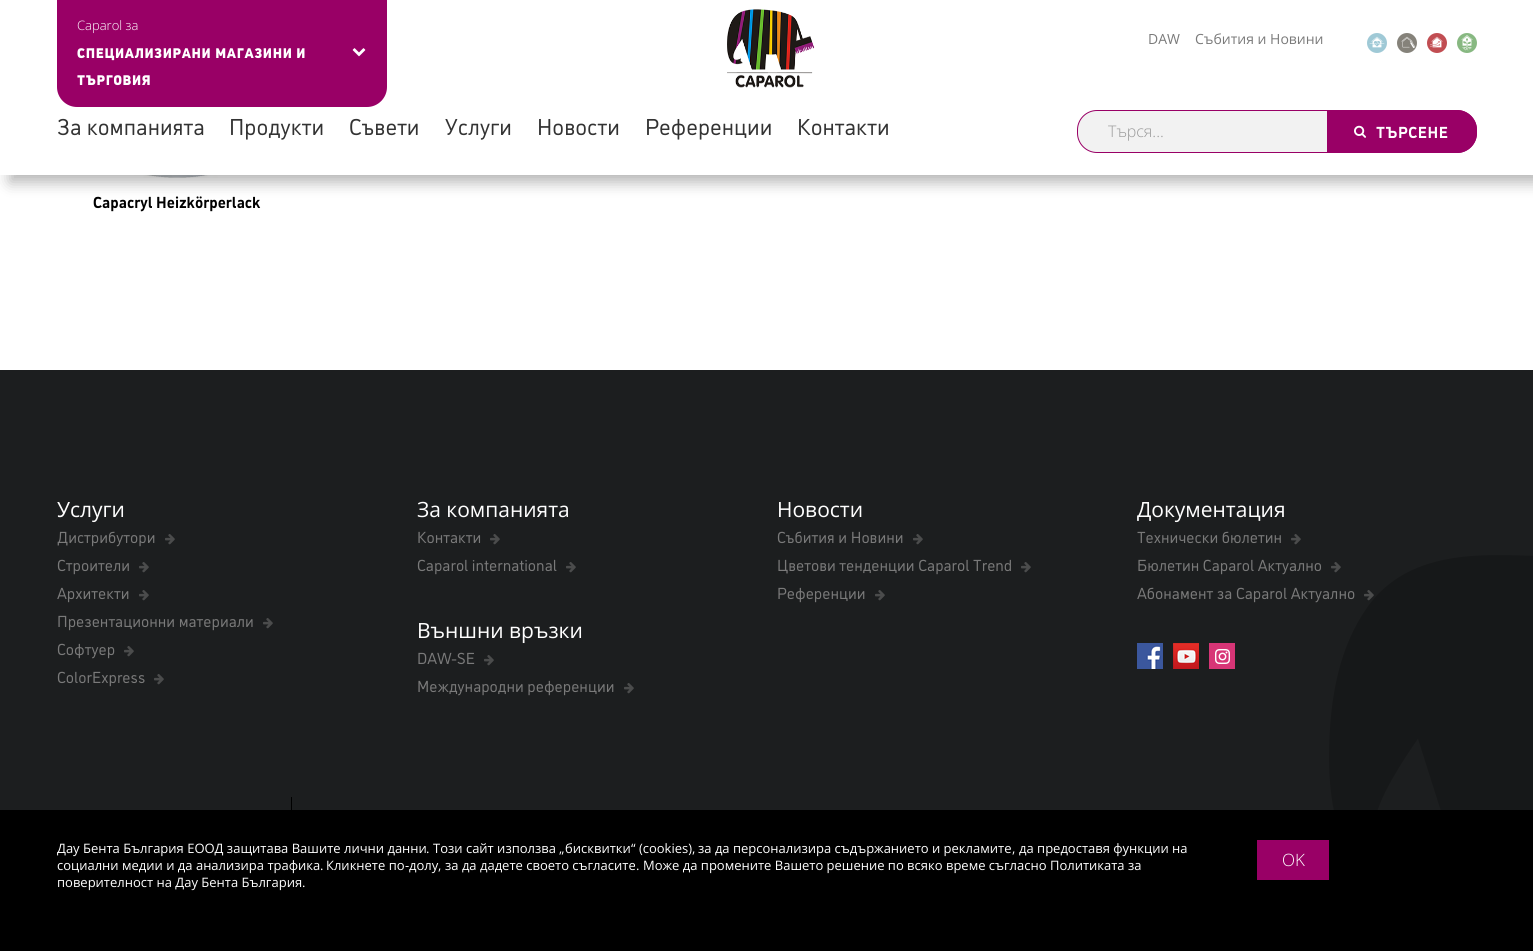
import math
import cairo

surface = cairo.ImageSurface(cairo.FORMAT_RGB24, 1533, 951)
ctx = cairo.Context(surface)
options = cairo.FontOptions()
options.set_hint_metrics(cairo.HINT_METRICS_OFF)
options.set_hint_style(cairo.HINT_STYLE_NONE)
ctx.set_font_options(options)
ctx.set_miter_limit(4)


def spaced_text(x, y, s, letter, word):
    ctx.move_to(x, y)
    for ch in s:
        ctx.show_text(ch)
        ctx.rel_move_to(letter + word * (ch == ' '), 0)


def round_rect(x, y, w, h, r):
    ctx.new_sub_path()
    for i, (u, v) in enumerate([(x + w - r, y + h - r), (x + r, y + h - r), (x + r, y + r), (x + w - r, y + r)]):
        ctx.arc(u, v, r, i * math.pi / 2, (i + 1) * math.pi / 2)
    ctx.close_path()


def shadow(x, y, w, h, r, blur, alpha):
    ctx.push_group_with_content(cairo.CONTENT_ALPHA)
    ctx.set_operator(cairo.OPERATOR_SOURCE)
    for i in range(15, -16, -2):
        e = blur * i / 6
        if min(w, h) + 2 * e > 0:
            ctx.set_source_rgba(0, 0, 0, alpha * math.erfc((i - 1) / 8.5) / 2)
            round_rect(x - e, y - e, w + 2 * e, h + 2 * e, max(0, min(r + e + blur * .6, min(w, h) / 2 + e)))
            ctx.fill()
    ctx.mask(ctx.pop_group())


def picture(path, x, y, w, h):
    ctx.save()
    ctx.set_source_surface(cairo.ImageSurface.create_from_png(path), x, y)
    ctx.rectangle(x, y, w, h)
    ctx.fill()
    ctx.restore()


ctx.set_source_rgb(1, 1, 1)
ctx.paint()
picture("img8.png", 108, 175, 137, 3)
ctx.set_source_rgb(0, 0, 0)
shadow(10, 13, 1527, 169, 0, 7.5, 0.3)
ctx.set_source_rgb(1, 1, 1)
ctx.rectangle(0, 0, 1533, 175)
ctx.fill()
picture("img1.png", 727, 9, 88, 79)
ctx.set_source_rgb(0.6, 0, 0.4)
ctx.new_path()
ctx.move_to(57, 0)
ctx.line_to(387, 0)
ctx.line_to(387, 87)
ctx.curve_to(387, 98, 378, 107, 367, 107)
ctx.line_to(77, 107)
ctx.curve_to(66, 107, 57, 98, 57, 87)
ctx.close_path()
ctx.fill()
ctx.select_font_face("Open Sans Light")
ctx.set_font_size(13)
ctx.set_source_rgb(1, 1, 1)
ctx.move_to(77, 30)
ctx.show_text("Caparol за")
ctx.select_font_face("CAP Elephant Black")
ctx.set_font_size(14)
spaced_text(77, 58, "СПЕЦИАЛИЗИРАНИ МАГАЗИНИ И", 0.65, 0)
picture("img2.png", 352, 48, 14, 9)
spaced_text(77, 85, "ТЪРГОВИЯ", 0.65, 0)
ctx.select_font_face("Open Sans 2")
ctx.set_source_rgb(0.478, 0.478, 0.478)
ctx.move_to(1148, 44)
ctx.show_text("DAW")
ctx.select_font_face("Open Sans")
ctx.move_to(1195, 44)
ctx.show_text("Събития и Новини")
picture("img3.png", 1367, 33, 20, 20)
picture("img4.png", 1397, 33, 20, 20)
picture("img5.png", 1427, 33, 20, 20)
picture("img6.png", 1457, 33, 20, 20)
ctx.select_font_face("CAP Elephant")
ctx.set_font_size(23)
ctx.set_source_rgb(0.2, 0.2, 0.2)
ctx.move_to(57, 135)
ctx.show_text("За компанията")
ctx.move_to(229, 135)
ctx.show_text("Продукти")
ctx.move_to(349, 135)
ctx.show_text("Съвети")
ctx.move_to(445, 135)
ctx.show_text("Услуги")
ctx.move_to(537, 135)
ctx.show_text("Новости")
ctx.move_to(645, 135)
ctx.show_text("Референции")
ctx.move_to(797, 135)
ctx.show_text("Контакти")
ctx.set_source_rgb(0.949, 0.949, 0.949)
round_rect(1077.5, 110.5, 399, 42, 19.5)
ctx.fill_preserve()
ctx.set_source_rgb(0.6, 0, 0.4)
ctx.set_line_width(1)
ctx.stroke()
ctx.select_font_face("Open Sans Light")
ctx.set_font_size(16)
ctx.set_source_rgb(0.6, 0.6, 0.6)
ctx.move_to(1108, 137)
ctx.show_text("Търся...")
ctx.set_source_rgb(0.6, 0, 0.4)
ctx.new_path()
ctx.move_to(1327, 110)
ctx.line_to(1457, 110)
ctx.curve_to(1468, 110, 1477, 119, 1477, 130)
ctx.line_to(1477, 133)
ctx.curve_to(1477, 144, 1468, 153, 1457, 153)
ctx.line_to(1327, 153)
ctx.close_path()
ctx.fill()
picture("img7.png", 1354, 125, 12, 13)
ctx.select_font_face("CAP Elephant", cairo.FONT_SLANT_NORMAL, cairo.FONT_WEIGHT_BOLD)
ctx.set_source_rgb(1, 1, 1)
spaced_text(1376, 138, "ТЪРСЕНЕ", 0.5, 0)
ctx.set_source_rgb(0, 0, 0)
ctx.move_to(93, 208)
ctx.show_text("Capacryl Heizkörperlack")
ctx.set_source_rgb(0.11, 0.118, 0.122)
ctx.rectangle(0, 370, 1533, 440)
ctx.fill()
ctx.select_font_face("Open Sans")
ctx.set_font_size(21)
ctx.set_source_rgb(1, 1, 1)
ctx.move_to(57, 517)
ctx.show_text("Услуги")
ctx.select_font_face("CAP Elephant")
ctx.set_font_size(16)
ctx.set_source_rgb(0.478, 0.478, 0.478)
ctx.move_to(57, 543)
ctx.show_text("Дистрибутори")
picture("img9.png", 165, 534, 10, 11)
ctx.move_to(57, 571)
ctx.show_text("Строители")
picture("img9.png", 139, 562, 10, 11)
ctx.move_to(57, 599)
ctx.show_text("Архитекти")
picture("img9.png", 139, 590, 10, 11)
ctx.move_to(57, 627)
ctx.show_text("Презентационни материали")
picture("img9.png", 263, 618, 10, 11)
ctx.move_to(57, 655)
ctx.show_text("Софтуер")
picture("img9.png", 124, 646, 10, 11)
ctx.move_to(57, 683)
ctx.show_text("ColorExpress")
picture("img9.png", 154, 674, 10, 11)
ctx.select_font_face("Open Sans")
ctx.set_font_size(21)
ctx.set_source_rgb(1, 1, 1)
ctx.move_to(417, 517)
ctx.show_text("За компанията")
ctx.select_font_face("CAP Elephant")
ctx.set_font_size(16)
ctx.set_source_rgb(0.478, 0.478, 0.478)
ctx.move_to(417, 543)
ctx.show_text("Контакти")
picture("img9.png", 490, 534, 10, 11)
ctx.move_to(417, 571)
ctx.show_text("Caparol international")
picture("img9.png", 566, 562, 10, 11)
ctx.select_font_face("Open Sans")
ctx.set_font_size(21)
ctx.set_source_rgb(1, 1, 1)
ctx.move_to(417, 638)
ctx.show_text("Външни връзки")
ctx.select_font_face("CAP Elephant")
ctx.set_font_size(16)
ctx.set_source_rgb(0.478, 0.478, 0.478)
ctx.move_to(417, 664)
ctx.show_text("DAW-SE")
picture("img9.png", 484, 655, 10, 11)
ctx.move_to(417, 692)
ctx.show_text("Международни референции")
picture("img9.png", 624, 683, 10, 11)
ctx.select_font_face("Open Sans")
ctx.set_font_size(21)
ctx.set_source_rgb(1, 1, 1)
ctx.move_to(777, 517)
ctx.show_text("Новости")
ctx.select_font_face("CAP Elephant")
ctx.set_font_size(16)
ctx.set_source_rgb(0.478, 0.478, 0.478)
ctx.move_to(777, 543)
ctx.show_text("Събития и Новини")
picture("img9.png", 913, 534, 10, 11)
ctx.move_to(777, 571)
ctx.show_text("Цветови тенденции Caparol Trend")
picture("img9.png", 1021, 562, 10, 11)
ctx.move_to(777, 599)
ctx.show_text("Референции")
picture("img9.png", 875, 590, 10, 11)
ctx.select_font_face("Open Sans")
ctx.set_font_size(21)
ctx.set_source_rgb(1, 1, 1)
ctx.move_to(1137, 517)
ctx.show_text("Документация")
ctx.select_font_face("CAP Elephant")
ctx.set_font_size(16)
ctx.set_source_rgb(0.478, 0.478, 0.478)
ctx.move_to(1137, 543)
ctx.show_text("Технически бюлетин")
picture("img9.png", 1291, 534, 10, 11)
ctx.move_to(1137, 571)
ctx.show_text("Бюлетин Caparol Актуално")
picture("img14.png", 1329, 555, 204, 255)
picture("img9.png", 1331, 562, 10, 11)
ctx.move_to(1137, 599)
ctx.show_text("Абонамент за Caparol Актуално")
picture("img10.png", 1364, 590, 10, 11)
picture("img11.png", 1137, 643, 26, 26)
picture("img12.png", 1173, 643, 26, 26)
picture("img13.png", 1209, 643, 26, 26)
ctx.set_source_rgb(0, 0, 0)
ctx.rectangle(291, 797, 1, 13)
ctx.fill()
ctx.rectangle(0, 810, 1533, 141)
ctx.fill()
ctx.select_font_face("Open Sans")
ctx.set_font_size(13)
ctx.set_source_rgb(1, 1, 1)
ctx.move_to(57, 853)
ctx.show_text("Дау Бента България ЕООД защитава Вашите лични данни")
ctx.select_font_face("Open Sans 2")
ctx.move_to(426, 853)
ctx.show_text(".")
ctx.select_font_face("Open Sans")
ctx.move_to(433, 853)
ctx.show_text("Този сайт използва")
ctx.select_font_face("Open Sans 2")
ctx.move_to(559, 853)
ctx.show_text("„")
ctx.select_font_face("Open Sans")
ctx.move_to(565, 853)
ctx.show_text("бисквитки")
ctx.select_font_face("Open Sans 2")
ctx.move_to(631, 853)
ctx.show_text("“ (cookies),")
ctx.select_font_face("Open Sans")
ctx.move_to(698, 853)
ctx.show_text("за да персонализира съдържанието и рекламите")
ctx.select_font_face("Open Sans 2")
ctx.move_to(1012, 853)
ctx.show_text(",")
ctx.select_font_face("Open Sans")
ctx.move_to(1019, 853)
ctx.show_text("да предоставя функции на")
ctx.move_to(57, 870)
ctx.show_text("социални медии и да анализира трафика")
ctx.move_to(326, 870)
ctx.show_text("Кликнете по")
ctx.select_font_face("Open Sans 2")
ctx.move_to(405, 870)
ctx.show_text("-")
ctx.select_font_face("Open Sans")
ctx.move_to(409, 870)
ctx.show_text("долу")
ctx.move_to(445, 870)
ctx.show_text("за да дадете своето съгласите")
ctx.move_to(643, 870)
ctx.show_text("Може да промените Вашето решение по всяко време съгласно Политиката за")
ctx.select_font_face("Open Sans 2")
ctx.move_to(320, 870)
ctx.show_text(".")
ctx.move_to(438, 870)
ctx.show_text(",")
ctx.move_to(636, 870)
ctx.show_text(".")
ctx.select_font_face("Open Sans")
ctx.move_to(57, 887)
ctx.show_text("поверителност на Дау Бента България")
ctx.select_font_face("Open Sans 2")
ctx.move_to(302, 887)
ctx.show_text(".")
ctx.set_source_rgb(0.6, 0, 0.4)
ctx.rectangle(1257, 840, 72, 40)
ctx.fill()
ctx.select_font_face("Open Sans Light")
ctx.set_font_size(17)
ctx.set_source_rgb(1, 1, 1)
ctx.move_to(1282, 866)
ctx.show_text("OK")
surface.write_to_png("page.png")
